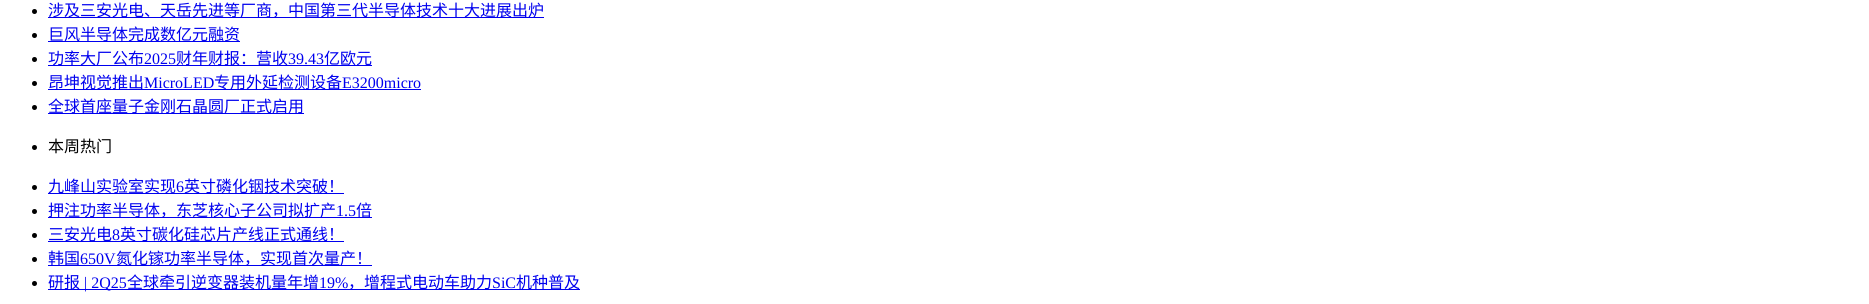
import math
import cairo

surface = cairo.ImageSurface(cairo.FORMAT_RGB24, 1869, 304)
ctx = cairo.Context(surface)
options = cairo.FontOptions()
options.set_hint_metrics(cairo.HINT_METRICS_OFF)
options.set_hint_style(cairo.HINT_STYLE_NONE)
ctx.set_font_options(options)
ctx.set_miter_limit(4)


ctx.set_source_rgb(1, 1, 1)
ctx.paint()
ctx.set_source_rgb(0, 0, 0)
ctx.arc(34.5, 11.5, 2.5, 0, 2 * math.pi)
ctx.fill()
ctx.set_source_rgb(0, 0, 0.933)
ctx.rectangle(48, 17, 496, 1)
ctx.fill()
ctx.select_font_face("Noto Sans CJK SC")
ctx.set_font_size(16)
ctx.move_to(48, 16)
ctx.show_text("涉及三安光电、天岳先进等厂商，中国第三代半导体技术十大进展出炉")
ctx.set_source_rgb(0, 0, 0)
ctx.new_path()
ctx.arc(34.5, 35.5, 2.5, 0, 2 * math.pi)
ctx.fill()
ctx.set_source_rgb(0, 0, 0.933)
ctx.rectangle(48, 41, 192, 1)
ctx.fill()
ctx.move_to(48, 40)
ctx.show_text("巨风半导体完成数亿元融资")
ctx.set_source_rgb(0, 0, 0)
ctx.new_path()
ctx.arc(34.5, 59.5, 2.5, 0, 2 * math.pi)
ctx.fill()
ctx.set_source_rgb(0, 0, 0.933)
ctx.rectangle(48, 65, 324, 1)
ctx.fill()
ctx.move_to(48, 64)
ctx.show_text("功率大厂公布")
ctx.select_font_face("Liberation Serif")
ctx.move_to(144, 64)
ctx.show_text("2025")
ctx.select_font_face("Noto Sans CJK SC")
ctx.move_to(176, 64)
ctx.show_text("财年财报：营收")
ctx.select_font_face("Liberation Serif")
ctx.move_to(288, 64)
ctx.show_text("39.43")
ctx.select_font_face("Noto Sans CJK SC")
ctx.move_to(324, 64)
ctx.show_text("亿欧元")
ctx.set_source_rgb(0, 0, 0)
ctx.new_path()
ctx.arc(34.5, 83.5, 2.5, 0, 2 * math.pi)
ctx.fill()
ctx.set_source_rgb(0, 0, 0.933)
ctx.rectangle(48, 89, 373, 1)
ctx.fill()
ctx.move_to(48, 88)
ctx.show_text("昂坤视觉推出")
ctx.select_font_face("Liberation Serif")
ctx.move_to(144, 88)
ctx.show_text("MicroLED")
ctx.select_font_face("Noto Sans CJK SC")
ctx.move_to(214, 88)
ctx.show_text("专用外延检测设备")
ctx.select_font_face("Liberation Serif")
ctx.move_to(342, 88)
ctx.show_text("E3200micro")
ctx.set_source_rgb(0, 0, 0)
ctx.new_path()
ctx.arc(34.5, 107.5, 2.5, 0, 2 * math.pi)
ctx.fill()
ctx.set_source_rgb(0, 0, 0.933)
ctx.rectangle(48, 113, 256, 1)
ctx.fill()
ctx.select_font_face("Noto Sans CJK SC")
ctx.move_to(48, 112)
ctx.show_text("全球首座量子金刚石晶圆厂正式启用")
ctx.set_source_rgb(0, 0, 0)
ctx.new_path()
ctx.arc(34.5, 147.5, 2.5, 0, 2 * math.pi)
ctx.fill()
ctx.move_to(48, 152)
ctx.show_text("本周热门")
ctx.new_path()
ctx.arc(34.5, 187.5, 2.5, 0, 2 * math.pi)
ctx.fill()
ctx.set_source_rgb(0, 0, 0.933)
ctx.rectangle(48, 193, 296, 1)
ctx.fill()
ctx.move_to(48, 192)
ctx.show_text("九峰山实验室实现")
ctx.select_font_face("Liberation Serif")
ctx.move_to(176, 192)
ctx.show_text("6")
ctx.select_font_face("Noto Sans CJK SC")
ctx.move_to(184, 192)
ctx.show_text("英寸磷化铟技术突破！")
ctx.set_source_rgb(0, 0, 0)
ctx.new_path()
ctx.arc(34.5, 211.5, 2.5, 0, 2 * math.pi)
ctx.fill()
ctx.set_source_rgb(0, 0, 0.933)
ctx.rectangle(48, 217, 324, 1)
ctx.fill()
ctx.move_to(48, 216)
ctx.show_text("押注功率半导体，东芝核心子公司拟扩产")
ctx.select_font_face("Liberation Serif")
ctx.move_to(336, 216)
ctx.show_text("1.5")
ctx.select_font_face("Noto Sans CJK SC")
ctx.move_to(356, 216)
ctx.show_text("倍")
ctx.set_source_rgb(0, 0, 0)
ctx.new_path()
ctx.arc(34.5, 235.5, 2.5, 0, 2 * math.pi)
ctx.fill()
ctx.set_source_rgb(0, 0, 0.933)
ctx.rectangle(48, 241, 296, 1)
ctx.fill()
ctx.move_to(48, 240)
ctx.show_text("三安光电")
ctx.select_font_face("Liberation Serif")
ctx.move_to(112, 240)
ctx.show_text("8")
ctx.select_font_face("Noto Sans CJK SC")
ctx.move_to(120, 240)
ctx.show_text("英寸碳化硅芯片产线正式通线！")
ctx.set_source_rgb(0, 0, 0)
ctx.new_path()
ctx.arc(34.5, 259.5, 2.5, 0, 2 * math.pi)
ctx.fill()
ctx.set_source_rgb(0, 0, 0.933)
ctx.rectangle(48, 265, 324, 1)
ctx.fill()
ctx.move_to(48, 264)
ctx.show_text("韩国")
ctx.select_font_face("Liberation Serif")
ctx.move_to(80, 264)
ctx.show_text("650V")
ctx.select_font_face("Noto Sans CJK SC")
ctx.move_to(116, 264)
ctx.show_text("氮化镓功率半导体，实现首次量产！")
ctx.set_source_rgb(0, 0, 0)
ctx.new_path()
ctx.arc(34.5, 283.5, 2.5, 0, 2 * math.pi)
ctx.fill()
ctx.set_source_rgb(0, 0, 0.933)
ctx.rectangle(48, 289, 532, 1)
ctx.fill()
ctx.move_to(48, 288)
ctx.show_text("研报")
ctx.select_font_face("Liberation Serif")
ctx.move_to(84, 288)
ctx.show_text("| 2Q25")
ctx.select_font_face("Noto Sans CJK SC")
ctx.move_to(127, 288)
ctx.show_text("全球牵引逆变器装机量年增")
ctx.select_font_face("Liberation Serif")
ctx.move_to(319, 288)
ctx.show_text("19%")
ctx.select_font_face("Noto Sans CJK SC")
ctx.move_to(348, 288)
ctx.show_text("，增程式电动车助力")
ctx.select_font_face("Liberation Serif")
ctx.move_to(492, 288)
ctx.show_text("SiC")
ctx.select_font_face("Noto Sans CJK SC")
ctx.move_to(516, 288)
ctx.show_text("机种普及")
surface.write_to_png("page.png")
